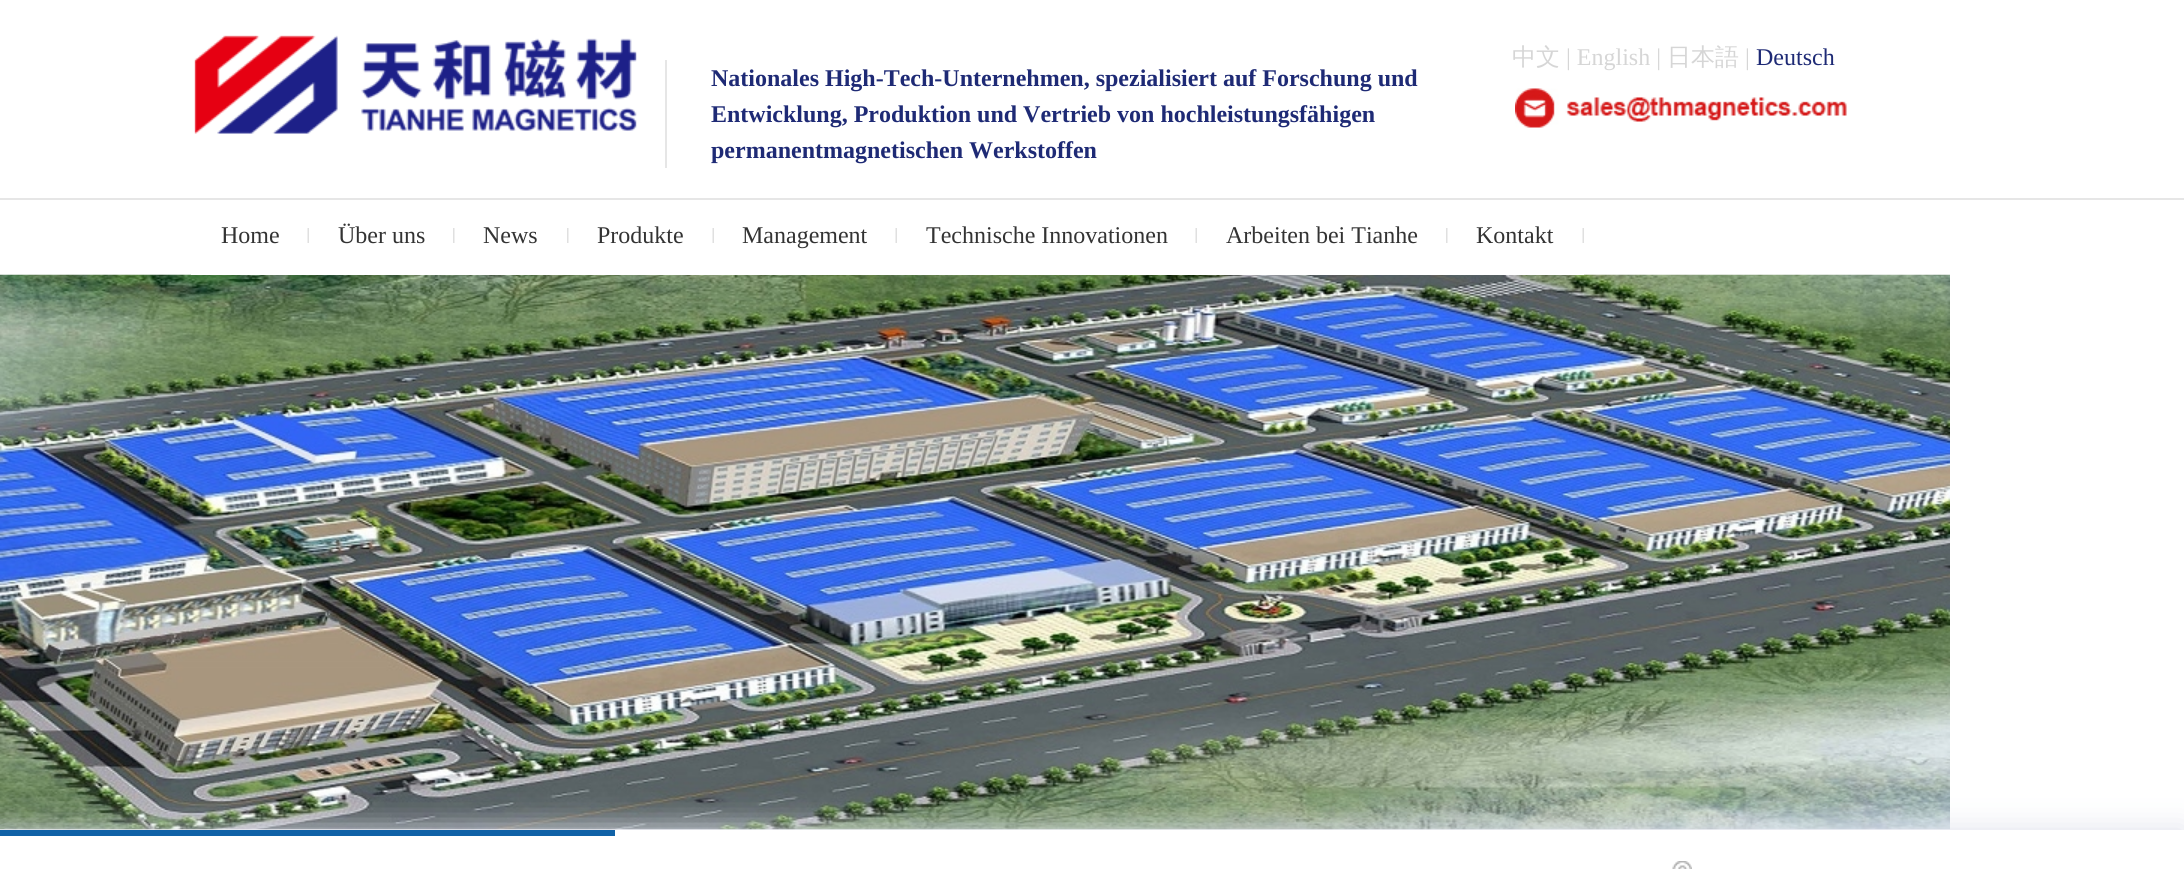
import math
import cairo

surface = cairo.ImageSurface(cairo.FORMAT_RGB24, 2184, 869)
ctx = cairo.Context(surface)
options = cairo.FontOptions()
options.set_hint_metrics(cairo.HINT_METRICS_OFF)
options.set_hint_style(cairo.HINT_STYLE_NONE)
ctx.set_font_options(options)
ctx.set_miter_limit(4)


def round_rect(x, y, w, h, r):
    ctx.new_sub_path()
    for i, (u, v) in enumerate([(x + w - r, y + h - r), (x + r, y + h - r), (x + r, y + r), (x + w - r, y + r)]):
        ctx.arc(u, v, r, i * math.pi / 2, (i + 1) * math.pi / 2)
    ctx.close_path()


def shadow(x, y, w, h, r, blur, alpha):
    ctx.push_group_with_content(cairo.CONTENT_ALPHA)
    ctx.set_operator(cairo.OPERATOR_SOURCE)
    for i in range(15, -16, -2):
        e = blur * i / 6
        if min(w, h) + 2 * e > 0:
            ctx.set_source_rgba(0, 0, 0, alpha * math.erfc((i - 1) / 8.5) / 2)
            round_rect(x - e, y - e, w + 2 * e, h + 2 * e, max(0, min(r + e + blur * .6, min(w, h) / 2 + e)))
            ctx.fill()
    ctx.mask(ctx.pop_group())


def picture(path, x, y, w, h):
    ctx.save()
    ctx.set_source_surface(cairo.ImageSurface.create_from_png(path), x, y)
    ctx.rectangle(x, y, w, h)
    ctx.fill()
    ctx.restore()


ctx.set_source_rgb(1, 1, 1)
ctx.paint()
picture("img1.png", 0, 829, 612, 1)
picture("img2.png", 194, 35, 443, 99)
picture("img3.png", 1515, 88, 332, 40)
ctx.select_font_face("WenQuanYi Zen Hei Medium")
ctx.set_font_size(24)
ctx.set_source_rgb(0.839, 0.839, 0.839)
ctx.move_to(1512, 65)
ctx.show_text("中文")
ctx.select_font_face("Liberation Serif")
ctx.move_to(1566, 65)
ctx.show_text("| English |")
ctx.select_font_face("WenQuanYi Zen Hei Medium")
ctx.move_to(1667, 65)
ctx.show_text("日本語")
ctx.select_font_face("Liberation Serif")
ctx.move_to(1745, 65)
ctx.show_text("|")
ctx.set_source_rgb(0.118, 0.165, 0.459)
ctx.move_to(1756, 65)
ctx.show_text("Deutsch")
ctx.set_source_rgb(0.902, 0.902, 0.902)
ctx.rectangle(665, 60, 2, 108)
ctx.fill()
ctx.select_font_face("Liberation Serif", cairo.FONT_SLANT_NORMAL, cairo.FONT_WEIGHT_BOLD)
ctx.set_source_rgb(0.118, 0.165, 0.459)
ctx.move_to(711, 86)
ctx.show_text("Nationales High-Tech-Unternehmen, spezialisiert auf Forschung und")
ctx.move_to(711, 122)
ctx.show_text("Entwicklung, Produktion und Vertrieb von hochleistungsfähigen")
ctx.move_to(711, 158)
ctx.show_text("permanentmagnetischen Werkstoffen")
ctx.set_source_rgb(0.902, 0.902, 0.902)
ctx.rectangle(0, 198, 2184, 2)
ctx.fill()
picture("img4.png", 307, 228, 2, 15)
picture("img6.png", 0, 274, 1950, 556)
ctx.set_source_rgb(1, 1, 1)
ctx.rectangle(191, 274, 1393, 1)
ctx.fill()
ctx.select_font_face("Liberation Serif")
ctx.set_source_rgb(0.2, 0.2, 0.2)
ctx.move_to(221, 243)
ctx.show_text("Home")
picture("img5.png", 453, 228, 2, 15)
ctx.move_to(338, 243)
ctx.show_text("Über uns")
picture("img5.png", 567, 228, 2, 15)
ctx.move_to(483, 243)
ctx.show_text("News")
picture("img4.png", 712, 228, 2, 15)
ctx.move_to(597, 243)
ctx.show_text("Produkte")
picture("img4.png", 895, 228, 2, 15)
ctx.move_to(742, 243)
ctx.show_text("Management")
picture("img4.png", 1195, 228, 2, 15)
ctx.move_to(926, 243)
ctx.show_text("Technische Innovationen")
picture("img5.png", 1446, 228, 2, 15)
ctx.move_to(1226, 243)
ctx.show_text("Arbeiten bei Tianhe")
picture("img4.png", 1582, 228, 2, 15)
ctx.move_to(1476, 243)
ctx.show_text("Kontakt")
ctx.set_source_rgb(0.871, 0.878, 0.922)
shadow(0, 830, 2184, 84, 0, 15, 1)
ctx.set_source_rgb(1, 1, 1)
ctx.rectangle(0, 830, 2184, 39)
ctx.fill()
ctx.set_source_rgb(0.063, 0.384, 0.655)
ctx.rectangle(0, 830, 615, 6)
ctx.fill()
picture("img7.png", 1672, 861, 20, 8)
surface.write_to_png("page.png")
